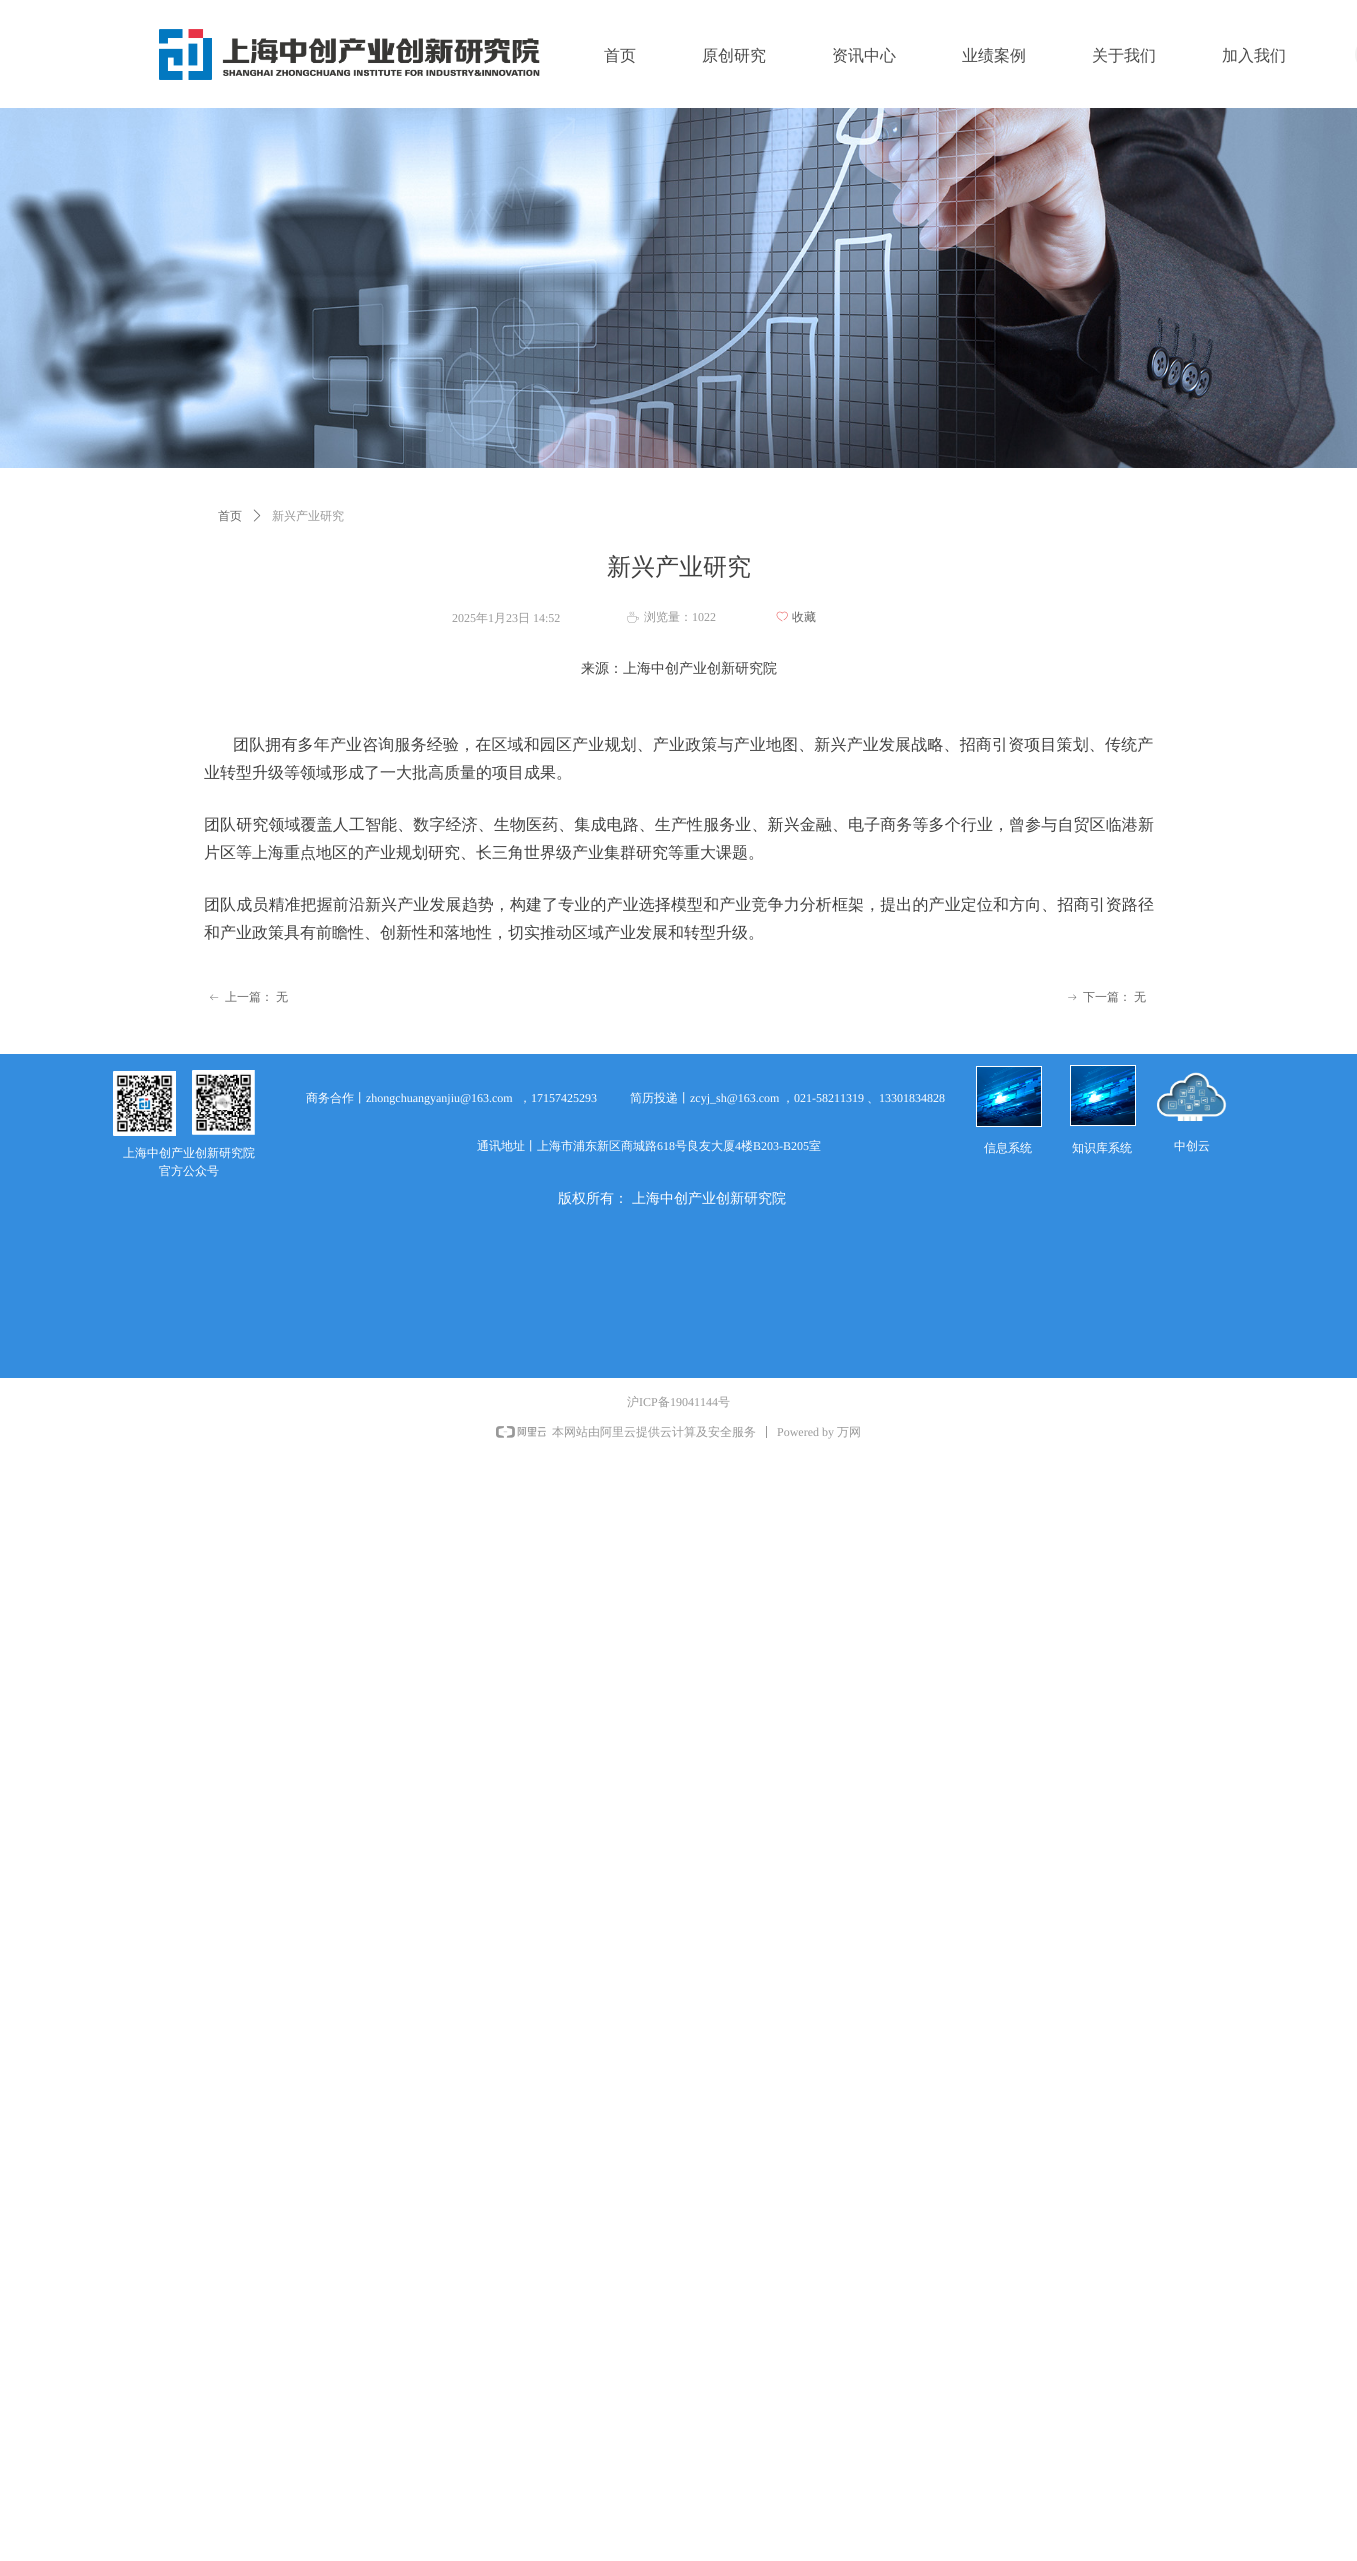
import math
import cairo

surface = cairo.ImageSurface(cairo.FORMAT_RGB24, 1357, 2561)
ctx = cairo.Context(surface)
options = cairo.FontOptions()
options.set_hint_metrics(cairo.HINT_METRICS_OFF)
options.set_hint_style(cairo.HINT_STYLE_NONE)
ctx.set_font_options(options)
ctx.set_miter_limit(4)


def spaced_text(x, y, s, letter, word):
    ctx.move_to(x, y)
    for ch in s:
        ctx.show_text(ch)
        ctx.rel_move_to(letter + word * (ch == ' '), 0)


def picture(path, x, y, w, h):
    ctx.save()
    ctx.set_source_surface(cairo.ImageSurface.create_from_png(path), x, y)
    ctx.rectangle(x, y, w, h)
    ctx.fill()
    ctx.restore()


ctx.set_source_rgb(1, 1, 1)
ctx.paint()
picture("img1.png", 159, 29, 53, 51)
picture("img2.png", 222, 38, 318, 39)
ctx.select_font_face("WenQuanYi Zen Hei Medium")
ctx.set_font_size(16)
ctx.set_source_rgb(0.29, 0.29, 0.29)
ctx.move_to(604, 61)
ctx.show_text("首页")
ctx.move_to(702, 61)
ctx.show_text("原创研究")
ctx.move_to(832, 61)
ctx.show_text("资讯中心")
ctx.move_to(962, 61)
ctx.show_text("业绩案例")
ctx.move_to(1092, 61)
ctx.show_text("关于我们")
ctx.move_to(1222, 61)
ctx.show_text("加入我们")
ctx.set_source_rgb(0.953, 0.953, 0.953)
ctx.new_path()
ctx.move_to(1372.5, 37)
ctx.line_to(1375, 37)
ctx.line_to(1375, 72)
ctx.line_to(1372.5, 72)
ctx.curve_to(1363, 72, 1355, 64, 1355, 54.5)
ctx.curve_to(1355, 45, 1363, 37, 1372.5, 37)
ctx.close_path()
ctx.fill()
picture("img3.png", 0, 108, 1357, 360)
ctx.set_font_size(12)
ctx.set_source_rgb(0.4, 0.4, 0.4)
ctx.move_to(218, 520)
ctx.show_text("首页")
picture("img4.png", 253, 509, 8, 13)
ctx.set_source_rgb(0.6, 0.6, 0.6)
ctx.move_to(272, 520)
ctx.show_text("新兴产业研究")
ctx.set_font_size(24)
ctx.set_source_rgb(0.251, 0.251, 0.251)
ctx.move_to(607, 575)
ctx.show_text("新兴产业研究")
ctx.select_font_face("Liberation Serif")
ctx.set_font_size(12)
ctx.set_source_rgb(0.6, 0.6, 0.6)
ctx.move_to(452, 622)
ctx.show_text("2025")
ctx.select_font_face("WenQuanYi Zen Hei Medium")
ctx.move_to(476, 622)
ctx.show_text("年")
ctx.select_font_face("Liberation Serif")
ctx.move_to(488, 622)
ctx.show_text("1")
ctx.select_font_face("WenQuanYi Zen Hei Medium")
ctx.move_to(494, 622)
ctx.show_text("月")
ctx.select_font_face("Liberation Serif")
ctx.move_to(506, 622)
ctx.show_text("23")
ctx.select_font_face("WenQuanYi Zen Hei Medium")
ctx.move_to(518, 622)
ctx.show_text("日")
ctx.select_font_face("Liberation Serif")
ctx.move_to(533, 622)
ctx.show_text("14:52")
picture("img5.png", 627, 611, 12, 12)
ctx.select_font_face("WenQuanYi Zen Hei Medium")
ctx.move_to(644, 621)
ctx.show_text("浏览量：")
ctx.select_font_face("Liberation Serif")
ctx.move_to(692, 621)
ctx.show_text("1022")
picture("img6.png", 776, 611, 12, 11)
ctx.select_font_face("WenQuanYi Zen Hei Medium")
ctx.set_source_rgb(0.4, 0.4, 0.4)
ctx.move_to(792, 621)
ctx.show_text("收藏")
ctx.set_font_size(14)
ctx.set_source_rgb(0.251, 0.251, 0.251)
ctx.move_to(581, 673)
ctx.show_text("来源：上海中创产业创新研究院")
ctx.set_font_size(16)
spaced_text(233, 750, "团队拥有多年产业咨询服务经验，在区域和园区产业规划、产业政策与产业地图、新兴产业发展战略、招商引资项目策划、传统产", 0.15, 0)
ctx.move_to(204, 778)
ctx.show_text("业转型升级等领域形成了一大批高质量的项目成果。")
spaced_text(204, 830, "团队研究领域覆盖人工智能、数字经济、生物医药、集成电路、生产性服务业、新兴金融、电子商务等多个行业，曾参与自贸区临港新", 0.1, 0)
ctx.move_to(204, 858)
ctx.show_text("片区等上海重点地区的产业规划研究、长三角世界级产业集群研究等重大课题。")
spaced_text(204, 910, "团队成员精准把握前沿新兴产业发展趋势，构建了专业的产业选择模型和产业竞争力分析框架，提出的产业定位和方向、招商引资路径", 0.1, 0)
ctx.move_to(204, 938)
ctx.show_text("和产业政策具有前瞻性、创新性和落地性，切实推动区域产业发展和转型升级。")
picture("img7.png", 210, 994, 9, 7)
ctx.set_font_size(12)
ctx.set_source_rgb(0.4, 0.4, 0.4)
ctx.move_to(225, 1001)
ctx.show_text("上一篇：")
ctx.move_to(276, 1001)
ctx.show_text("无")
picture("img8.png", 1068, 994, 9, 7)
ctx.move_to(1083, 1001)
ctx.show_text("下一篇：")
ctx.move_to(1134, 1001)
ctx.show_text("无")
ctx.set_source_rgb(0.204, 0.553, 0.875)
ctx.rectangle(0, 1054, 1357, 324)
ctx.fill()
picture("img9.png", 113, 1071, 63, 65)
picture("img10.png", 192, 1070, 63, 65)
ctx.set_source_rgb(1, 1, 1)
ctx.move_to(306, 1102)
ctx.show_text("商务合作丨")
ctx.select_font_face("Liberation Serif")
ctx.move_to(366, 1102)
ctx.show_text("zhongchuangyanjiu@163.com")
ctx.select_font_face("WenQuanYi Zen Hei Medium")
ctx.move_to(519, 1102)
ctx.show_text("，")
ctx.select_font_face("Liberation Serif")
ctx.move_to(531, 1102)
ctx.show_text("17157425293")
ctx.select_font_face("WenQuanYi Zen Hei Medium")
ctx.move_to(630, 1102)
ctx.show_text("简历投递丨")
ctx.select_font_face("Liberation Serif")
ctx.move_to(690, 1102)
ctx.show_text("zcyj_sh@163.com")
ctx.select_font_face("WenQuanYi Zen Hei Medium")
ctx.move_to(782, 1102)
ctx.show_text("，")
ctx.select_font_face("Liberation Serif")
ctx.move_to(794, 1102)
ctx.show_text("021-58211319")
ctx.select_font_face("WenQuanYi Zen Hei Medium")
ctx.move_to(867, 1102)
ctx.show_text("、")
ctx.select_font_face("Liberation Serif")
ctx.move_to(879, 1102)
ctx.show_text("13301834828")
ctx.select_font_face("WenQuanYi Zen Hei Medium")
ctx.move_to(477, 1150)
ctx.show_text("通讯地址丨上海市浦东新区商城路")
ctx.select_font_face("Liberation Serif")
ctx.move_to(657, 1150)
ctx.show_text("618")
ctx.select_font_face("WenQuanYi Zen Hei Medium")
ctx.move_to(675, 1150)
ctx.show_text("号良友大厦")
ctx.select_font_face("Liberation Serif")
ctx.move_to(735, 1150)
ctx.show_text("4")
ctx.select_font_face("WenQuanYi Zen Hei Medium")
ctx.move_to(741, 1150)
ctx.show_text("楼")
ctx.select_font_face("Liberation Serif")
ctx.move_to(753, 1150)
ctx.show_text("B203-B205")
ctx.select_font_face("WenQuanYi Zen Hei Medium")
ctx.move_to(809, 1150)
ctx.show_text("室")
ctx.rectangle(976.5, 1066.5, 65, 60)
ctx.set_line_width(1)
ctx.stroke()
picture("img11.png", 977, 1067, 64, 59)
ctx.rectangle(1070.5, 1065.5, 65, 60)
ctx.stroke()
picture("img12.png", 1071, 1066, 64, 59)
picture("img13.png", 1157, 1072, 70, 49)
ctx.move_to(123, 1157)
ctx.show_text("上海中创产业创新研究院")
ctx.move_to(159, 1175)
ctx.show_text("官方公众号")
ctx.move_to(984, 1152)
ctx.show_text("信息系统")
ctx.move_to(1072, 1152)
ctx.show_text("知识库系统")
ctx.move_to(1174, 1150)
ctx.show_text("中创云")
ctx.set_font_size(14)
ctx.move_to(558, 1203)
ctx.show_text("版权所有：")
ctx.move_to(632, 1203)
ctx.show_text("上海中创产业创新研究院")
ctx.set_font_size(12)
ctx.set_source_rgb(0.6, 0.6, 0.6)
ctx.move_to(627, 1406)
ctx.show_text("沪")
ctx.select_font_face("Liberation Serif")
ctx.move_to(639, 1406)
ctx.show_text("ICP")
ctx.select_font_face("WenQuanYi Zen Hei Medium")
ctx.move_to(658, 1406)
ctx.show_text("备")
ctx.select_font_face("Liberation Serif")
ctx.move_to(670, 1406)
ctx.show_text("19041144")
ctx.select_font_face("WenQuanYi Zen Hei Medium")
ctx.move_to(718, 1406)
ctx.show_text("号")
picture("img14.png", 496, 1426, 50, 12)
ctx.move_to(552, 1436)
ctx.show_text("本网站由阿里云提供云计算及安全服务")
ctx.set_source_rgb(0.596, 0.596, 0.596)
ctx.rectangle(766, 1426, 1, 12)
ctx.fill()
ctx.select_font_face("Liberation Serif")
ctx.set_source_rgb(0.6, 0.6, 0.6)
ctx.move_to(777, 1436)
ctx.show_text("Powered by")
ctx.select_font_face("WenQuanYi Zen Hei Medium")
ctx.move_to(837, 1436)
ctx.show_text("万网")
surface.write_to_png("page.png")
